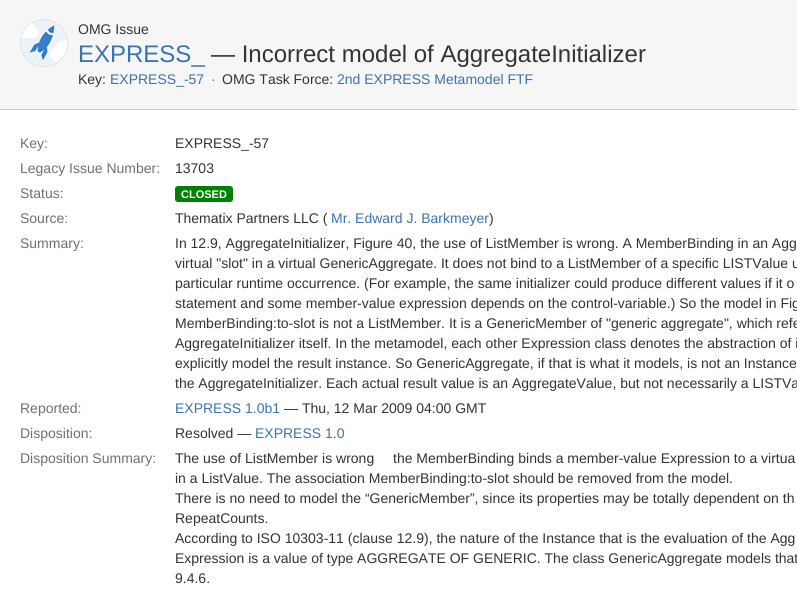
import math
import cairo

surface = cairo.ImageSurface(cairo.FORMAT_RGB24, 797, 592)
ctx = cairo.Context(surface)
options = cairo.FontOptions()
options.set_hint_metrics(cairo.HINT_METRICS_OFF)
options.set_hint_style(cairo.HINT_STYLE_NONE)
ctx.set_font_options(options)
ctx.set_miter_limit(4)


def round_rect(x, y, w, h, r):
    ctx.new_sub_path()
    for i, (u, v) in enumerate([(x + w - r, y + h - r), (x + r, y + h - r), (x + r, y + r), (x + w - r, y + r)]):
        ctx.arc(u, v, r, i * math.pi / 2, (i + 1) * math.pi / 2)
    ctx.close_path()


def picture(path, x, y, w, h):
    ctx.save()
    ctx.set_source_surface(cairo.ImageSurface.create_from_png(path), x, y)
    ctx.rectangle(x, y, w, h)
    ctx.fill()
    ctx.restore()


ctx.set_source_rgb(0.961, 0.961, 0.961)
ctx.paint()
picture("img1.png", 20, 19, 48, 48)
ctx.select_font_face("Liberation Sans")
ctx.set_font_size(14)
ctx.set_source_rgb(0.2, 0.2, 0.2)
ctx.move_to(78, 34)
ctx.show_text("OMG Issue")
ctx.set_font_size(24)
ctx.set_source_rgb(0.231, 0.451, 0.686)
ctx.move_to(78, 62)
ctx.show_text("EXPRESS_")
ctx.set_source_rgb(0.2, 0.2, 0.2)
ctx.move_to(211, 62)
ctx.show_text("— Incorrect model of AggregateInitializer")
ctx.set_font_size(14)
ctx.move_to(78, 84)
ctx.show_text("Key:")
ctx.set_source_rgb(0.231, 0.451, 0.686)
ctx.move_to(110, 84)
ctx.show_text("EXPRESS_-57")
ctx.set_source_rgb(0.439, 0.439, 0.439)
ctx.move_to(211, 84)
ctx.show_text("·")
ctx.set_source_rgb(0.2, 0.2, 0.2)
ctx.move_to(222, 84)
ctx.show_text("OMG Task Force:")
ctx.set_source_rgb(0.231, 0.451, 0.686)
ctx.move_to(337, 84)
ctx.show_text("2nd EXPRESS Metamodel FTF")
ctx.set_source_rgb(1, 1, 1)
ctx.rectangle(0, 110, 797, 482)
ctx.fill()
ctx.set_source_rgb(0.8, 0.8, 0.8)
ctx.rectangle(0, 109, 797, 1)
ctx.fill()
ctx.set_source_rgb(0.439, 0.439, 0.439)
ctx.move_to(20, 148)
ctx.show_text("Key:")
ctx.set_source_rgb(0.2, 0.2, 0.2)
ctx.move_to(175, 148)
ctx.show_text("EXPRESS_-57")
ctx.set_source_rgb(0.439, 0.439, 0.439)
ctx.move_to(20, 173)
ctx.show_text("Legacy Issue Number:")
ctx.set_source_rgb(0.2, 0.2, 0.2)
ctx.move_to(175, 173)
ctx.show_text("13703")
ctx.set_source_rgb(0.439, 0.439, 0.439)
ctx.move_to(20, 198)
ctx.show_text("Status:")
ctx.set_source_rgb(0, 0.502, 0)
round_rect(175.5, 186.5, 57, 15, 2.5)
ctx.fill_preserve()
ctx.set_line_width(1)
ctx.stroke()
ctx.select_font_face("Liberation Sans", cairo.FONT_SLANT_NORMAL, cairo.FONT_WEIGHT_BOLD)
ctx.set_font_size(11)
ctx.set_source_rgb(1, 1, 1)
ctx.move_to(181, 198)
ctx.show_text("CLOSED")
ctx.select_font_face("Liberation Sans")
ctx.set_font_size(14)
ctx.set_source_rgb(0.439, 0.439, 0.439)
ctx.move_to(20, 223)
ctx.show_text("Source:")
ctx.set_source_rgb(0.2, 0.2, 0.2)
ctx.move_to(175, 223)
ctx.show_text("Thematix Partners LLC (")
ctx.set_source_rgb(0.231, 0.451, 0.686)
ctx.move_to(331, 223)
ctx.show_text("Mr. Edward J. Barkmeyer")
ctx.set_source_rgb(0.2, 0.2, 0.2)
ctx.move_to(489, 223)
ctx.show_text(")")
ctx.set_source_rgb(0.439, 0.439, 0.439)
ctx.move_to(20, 248)
ctx.show_text("Summary:")
ctx.set_source_rgb(0.2, 0.2, 0.2)
ctx.move_to(175, 248)
ctx.show_text("In 12.9, AggregateInitializer, Figure 40, the use of ListMember is wrong. A MemberBinding in an Agg")
ctx.move_to(175, 268)
ctx.show_text("virtual \"slot\" in a virtual GenericAggregate. It does not bind to a ListMember of a specific LISTValue u")
ctx.move_to(175, 288)
ctx.show_text("particular runtime occurrence. (For example, the same initializer could produce different values if it o")
ctx.move_to(175, 308)
ctx.show_text("statement and some member-value expression depends on the control-variable.) So the model in Fig")
ctx.move_to(175, 328)
ctx.show_text("MemberBinding:to-slot is not a ListMember. It is a GenericMember of \"generic aggregate\", which refe")
ctx.move_to(175, 348)
ctx.show_text("AggregateInitializer itself. In the metamodel, each other Expression class denotes the abstraction of i")
ctx.move_to(175, 368)
ctx.show_text("explicitly model the result instance. So GenericAggregate, if that is what it models, is not an Instance")
ctx.move_to(175, 388)
ctx.show_text("the AggregateInitializer. Each actual result value is an AggregateValue, but not necessarily a LISTVa")
ctx.set_source_rgb(0.439, 0.439, 0.439)
ctx.move_to(20, 413)
ctx.show_text("Reported:")
ctx.set_source_rgb(0.231, 0.451, 0.686)
ctx.move_to(175, 413)
ctx.show_text("EXPRESS 1.0b1")
ctx.set_source_rgb(0.2, 0.2, 0.2)
ctx.move_to(284, 413)
ctx.show_text("— Thu, 12 Mar 2009 04:00 GMT")
ctx.set_source_rgb(0.439, 0.439, 0.439)
ctx.move_to(20, 438)
ctx.show_text("Disposition:")
ctx.set_source_rgb(0.2, 0.2, 0.2)
ctx.move_to(175, 438)
ctx.show_text("Resolved —")
ctx.set_source_rgb(0.231, 0.451, 0.686)
ctx.move_to(255, 438)
ctx.show_text("EXPRESS 1.0")
ctx.set_source_rgb(0.439, 0.439, 0.439)
ctx.move_to(20, 463)
ctx.show_text("Disposition Summary:")
ctx.set_source_rgb(0.2, 0.2, 0.2)
ctx.move_to(175, 463)
ctx.show_text("The use of ListMember is wrong")
ctx.move_to(393, 463)
ctx.show_text("the MemberBinding binds a member-value Expression to a virtua")
ctx.move_to(175, 483)
ctx.show_text("in a ListValue. The association MemberBinding:to-slot should be removed from the model.")
ctx.move_to(175, 503)
ctx.show_text("There is no need to model the “GenericMember”, since its properties may be totally dependent on th")
ctx.move_to(175, 523)
ctx.show_text("RepeatCounts.")
ctx.move_to(175, 543)
ctx.show_text("According to ISO 10303-11 (clause 12.9), the nature of the Instance that is the evaluation of the Agg")
ctx.move_to(175, 563)
ctx.show_text("Expression is a value of type AGGREGATE OF GENERIC. The class GenericAggregate models that")
ctx.move_to(175, 583)
ctx.show_text("9.4.6.")
surface.write_to_png("page.png")
